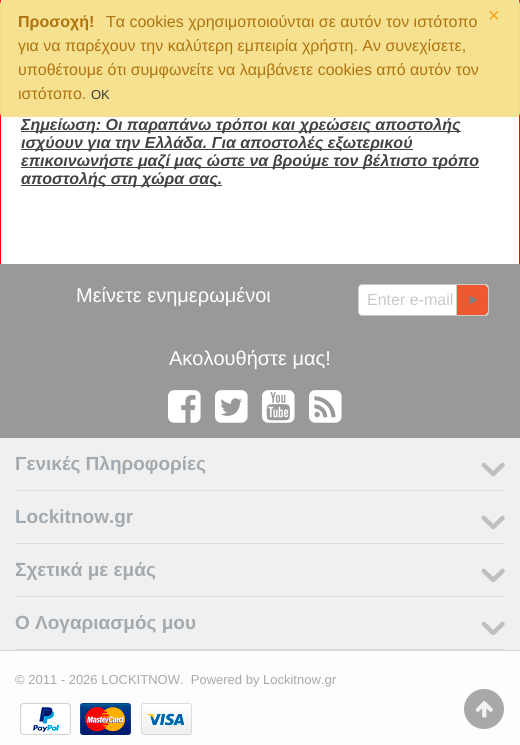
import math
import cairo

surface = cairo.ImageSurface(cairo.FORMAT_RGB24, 520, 745)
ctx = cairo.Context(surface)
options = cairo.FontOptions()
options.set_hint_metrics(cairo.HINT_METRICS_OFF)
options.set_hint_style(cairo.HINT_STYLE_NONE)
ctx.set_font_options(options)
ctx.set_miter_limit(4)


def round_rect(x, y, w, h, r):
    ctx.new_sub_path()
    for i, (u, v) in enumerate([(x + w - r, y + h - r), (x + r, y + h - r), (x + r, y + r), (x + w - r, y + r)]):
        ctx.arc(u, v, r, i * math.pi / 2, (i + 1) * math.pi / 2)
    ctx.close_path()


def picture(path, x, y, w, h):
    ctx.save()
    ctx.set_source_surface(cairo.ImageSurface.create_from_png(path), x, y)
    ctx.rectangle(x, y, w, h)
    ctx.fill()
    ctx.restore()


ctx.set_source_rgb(0.941, 0.941, 0.941)
ctx.paint()
ctx.set_source_rgb(1, 1, 1)
ctx.rectangle(1, 0, 518, 264)
ctx.fill()
ctx.set_source_rgb(1, 0, 0)
ctx.rectangle(519, 0, 1, 264)
ctx.fill()
ctx.rectangle(0, 0, 1, 264)
ctx.fill()
ctx.set_source_rgba(0.961, 0.878, 0.549, 0.96)
round_rect(0, 0, 520, 117, 4)
ctx.fill()
ctx.select_font_face("Liberation Sans", cairo.FONT_SLANT_NORMAL, cairo.FONT_WEIGHT_BOLD)
ctx.set_font_size(16)
ctx.set_source_rgb(0.686, 0.451, 0.063)
ctx.move_to(18, 27)
ctx.show_text("Προσοχή!")
ctx.select_font_face("Liberation Sans")
ctx.move_to(106, 27)
ctx.show_text("Τα cookies χρησιμοποιούνται σε αυτόν τον ιστότοπο")
ctx.set_font_size(20)
ctx.set_source_rgb(0.953, 0.627, 0.106)
ctx.move_to(488, 22)
ctx.show_text("×")
ctx.set_font_size(16)
ctx.set_source_rgb(0.686, 0.451, 0.063)
ctx.move_to(18, 51)
ctx.show_text("για να παρέχουν την καλύτερη εμπειρία χρήστη. Αν συνεχίσετε,")
ctx.move_to(18, 75)
ctx.show_text("υποθέτουμε ότι συμφωνείτε να λαμβάνετε cookies από αυτόν τον")
ctx.move_to(18, 99)
ctx.show_text("ιστότοπο.")
ctx.set_font_size(13)
ctx.set_source_rgb(0.231, 0.231, 0.231)
ctx.move_to(91, 99)
ctx.show_text("OK")
ctx.set_source_rgb(0.263, 0.263, 0.263)
ctx.rectangle(21, 131, 440, 1)
ctx.fill()
ctx.select_font_face("Liberation Sans", cairo.FONT_SLANT_ITALIC, cairo.FONT_WEIGHT_BOLD)
ctx.set_font_size(16)
ctx.move_to(21, 130)
ctx.show_text("Σημείωση: Οι παραπάνω τρόποι και χρεώσεις αποστολής")
ctx.rectangle(21, 149, 392, 1)
ctx.fill()
ctx.move_to(21, 148)
ctx.show_text("ισχύουν για την Ελλάδα. Για αποστολές εξωτερικού")
ctx.rectangle(21, 167, 458, 1)
ctx.fill()
ctx.move_to(21, 166)
ctx.show_text("επικοινωνήστε μαζί μας ώστε να βρούμε τον βέλτιστο τρόπο")
ctx.rectangle(21, 185, 201, 1)
ctx.fill()
ctx.move_to(21, 184)
ctx.show_text("αποστολής στη χώρα σας.")
ctx.set_source_rgb(0.6, 0.6, 0.6)
ctx.rectangle(0, 264, 520, 174)
ctx.fill()
ctx.select_font_face("Liberation Sans")
ctx.set_font_size(20)
ctx.set_source_rgb(1, 1, 1)
ctx.move_to(76, 302)
ctx.show_text("Μείνετε ενημερωμένοι")
round_rect(358.5, 284.5, 130, 31, 3.5)
ctx.fill_preserve()
ctx.set_source_rgb(0.792, 0.792, 0.792)
ctx.set_line_width(1)
ctx.stroke()
ctx.set_font_size(16)
ctx.set_source_rgb(0.788, 0.788, 0.788)
ctx.move_to(367, 305)
ctx.show_text("Enter e-mail")
ctx.set_source_rgb(0.937, 0.349, 0.196)
ctx.new_path()
ctx.move_to(456, 285)
ctx.line_to(484, 285)
ctx.curve_to(486, 285, 488, 287, 488, 289)
ctx.line_to(488, 311)
ctx.curve_to(488, 313, 486, 315, 484, 315)
ctx.line_to(456, 315)
ctx.close_path()
ctx.fill()
ctx.set_source_rgb(0.804, 0.804, 0.804)
ctx.rectangle(456, 285, 1, 30)
ctx.fill()
ctx.set_source_rgb(0.502, 0.502, 0.502)
ctx.new_path()
ctx.move_to(469.5, 295.5)
ctx.line_to(477.5, 300)
ctx.line_to(469.5, 305)
ctx.close_path()
ctx.fill()
ctx.set_font_size(20)
ctx.set_source_rgb(1, 1, 1)
ctx.move_to(169, 365)
ctx.show_text("Ακολουθήστε μας!")
picture("img1.png", 168, 390, 33, 33)
picture("img2.png", 215, 390, 33, 33)
picture("img3.png", 262, 390, 33, 33)
picture("img4.png", 309, 390, 33, 33)
ctx.set_source_rgb(0.855, 0.863, 0.871)
ctx.rectangle(15, 490, 490, 1)
ctx.fill()
ctx.select_font_face("Liberation Sans", cairo.FONT_SLANT_NORMAL, cairo.FONT_WEIGHT_BOLD)
ctx.set_font_size(19)
ctx.set_source_rgb(0.639, 0.667, 0.686)
ctx.move_to(15, 470)
ctx.show_text("Γενικές Πληροφορίες")
picture("img5.png", 481, 462, 24, 15)
ctx.set_source_rgb(0.855, 0.863, 0.871)
ctx.rectangle(15, 543, 490, 1)
ctx.fill()
ctx.set_source_rgb(0.639, 0.667, 0.686)
ctx.move_to(15, 523)
ctx.show_text("Lockitnow.gr")
picture("img5.png", 481, 515, 24, 15)
ctx.set_source_rgb(0.855, 0.863, 0.871)
ctx.rectangle(15, 596, 490, 1)
ctx.fill()
ctx.set_source_rgb(0.639, 0.667, 0.686)
ctx.move_to(15, 576)
ctx.show_text("Σχετικά με εμάς")
picture("img5.png", 481, 568, 24, 15)
ctx.set_source_rgb(0.855, 0.863, 0.871)
ctx.rectangle(15, 649, 490, 1)
ctx.fill()
ctx.set_source_rgb(0.639, 0.667, 0.686)
ctx.move_to(15, 629)
ctx.show_text("Ο Λογαριασμός μου")
picture("img5.png", 481, 621, 24, 15)
ctx.set_source_rgb(0.992, 0.992, 0.992)
ctx.rectangle(0, 651, 520, 94)
ctx.fill()
ctx.set_source_rgb(0.843, 0.843, 0.843)
ctx.rectangle(0, 650, 520, 1)
ctx.fill()
ctx.select_font_face("Liberation Sans")
ctx.set_font_size(13)
ctx.set_source_rgb(0.639, 0.667, 0.686)
ctx.move_to(15, 684)
ctx.show_text("© 2011 - 2026 LOCKITNOW.  Powered by Lockitnow.gr")
picture("img6.png", 20, 703, 51, 32)
picture("img7.png", 80, 703, 51, 32)
picture("img8.png", 141, 703, 51, 32)
ctx.set_source_rgb(0.659, 0.659, 0.659)
ctx.arc(484, 709, 20, 0, 2 * math.pi)
ctx.fill()
picture("img9.png", 475, 701, 18, 17)
surface.write_to_png("page.png")
